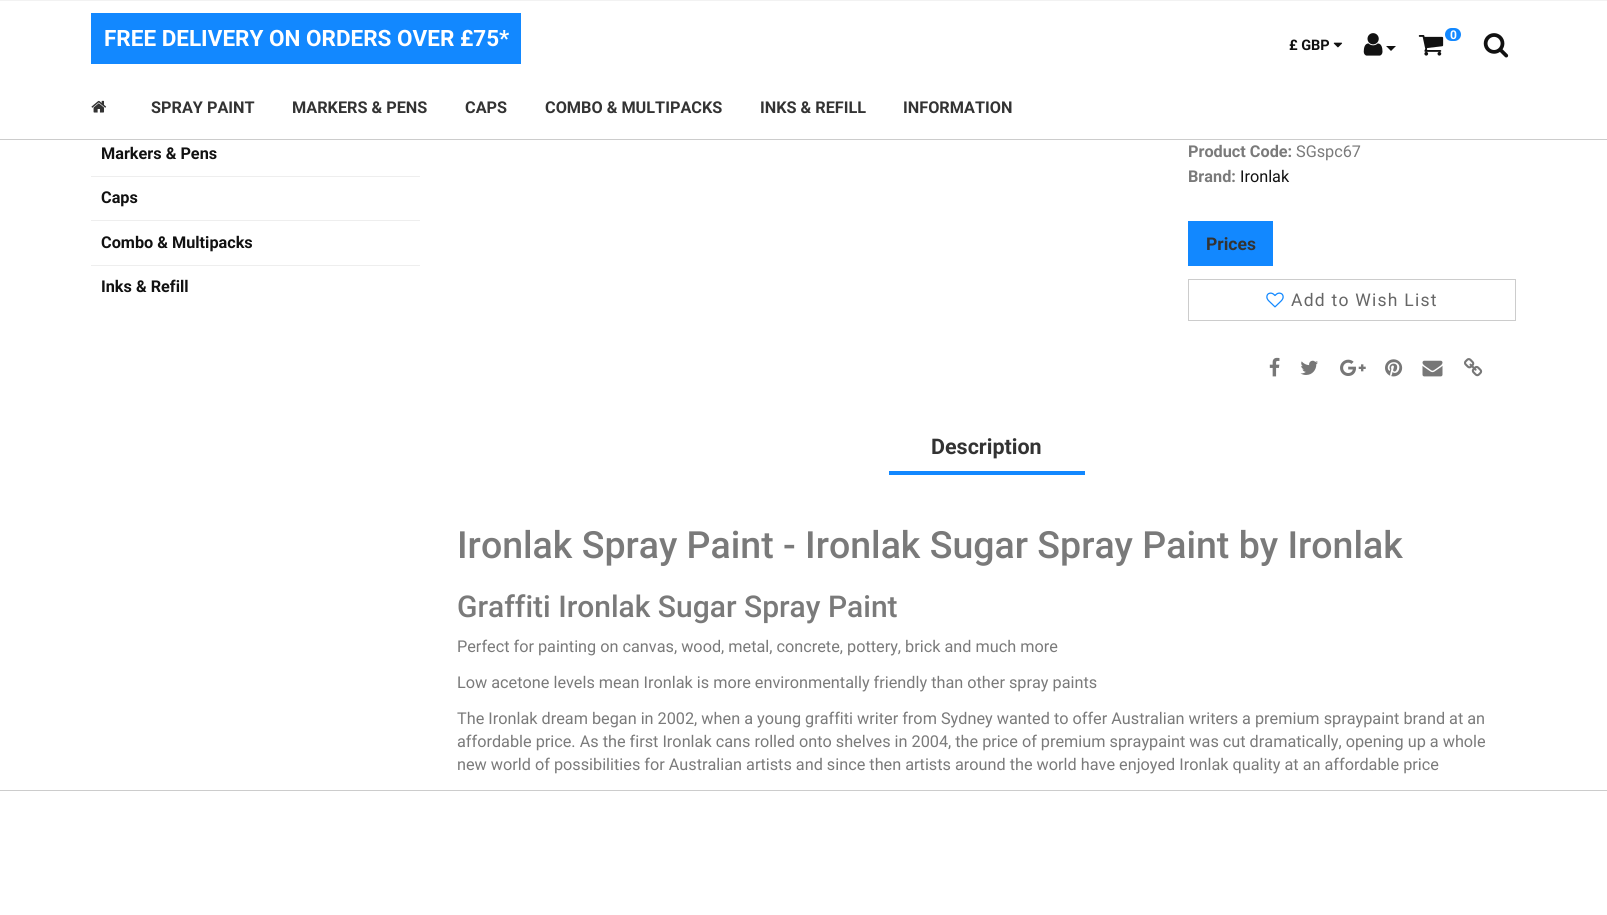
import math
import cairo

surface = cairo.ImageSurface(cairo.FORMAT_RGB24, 1607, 915)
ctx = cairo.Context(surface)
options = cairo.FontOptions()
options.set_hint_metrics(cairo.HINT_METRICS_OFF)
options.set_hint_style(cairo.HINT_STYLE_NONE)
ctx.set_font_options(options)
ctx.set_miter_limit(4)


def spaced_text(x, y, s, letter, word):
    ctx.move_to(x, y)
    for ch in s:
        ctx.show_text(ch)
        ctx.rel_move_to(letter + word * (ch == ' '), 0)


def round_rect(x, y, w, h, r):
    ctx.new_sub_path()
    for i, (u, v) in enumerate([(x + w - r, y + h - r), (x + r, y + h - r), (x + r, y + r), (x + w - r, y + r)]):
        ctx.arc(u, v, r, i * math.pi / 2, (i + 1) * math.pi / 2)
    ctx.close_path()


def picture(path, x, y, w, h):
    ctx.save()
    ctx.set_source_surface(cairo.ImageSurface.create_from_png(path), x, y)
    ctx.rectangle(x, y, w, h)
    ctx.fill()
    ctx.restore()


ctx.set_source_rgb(1, 1, 1)
ctx.paint()
ctx.set_source_rgb(0.8, 0.8, 0.8)
ctx.rectangle(0, 139, 1607, 1)
ctx.fill()
ctx.set_source_rgb(0.949, 0.949, 0.949)
ctx.rectangle(0, 0, 1607, 1)
ctx.fill()
ctx.set_source_rgb(0.071, 0.533, 1)
ctx.rectangle(91, 13, 430, 51)
ctx.fill()
ctx.select_font_face("Roboto", cairo.FONT_SLANT_NORMAL, cairo.FONT_WEIGHT_BOLD)
ctx.set_font_size(22.5)
ctx.set_source_rgb(1, 1, 1)
ctx.move_to(104, 46)
ctx.show_text("FREE DELIVERY ON ORDERS OVER £75*")
ctx.set_font_size(14.5)
ctx.set_source_rgb(0.067, 0.067, 0.067)
ctx.move_to(1289, 50)
ctx.show_text("£ GBP")
picture("img1.png", 1333, 42, 10, 6)
picture("img2.png", 1363, 33, 20, 23)
ctx.new_path()
ctx.move_to(1386, 46)
ctx.line_to(1396, 46)
ctx.line_to(1391, 51)
ctx.close_path()
ctx.fill()
picture("img3.png", 1418, 35, 26, 21)
ctx.set_source_rgb(0.071, 0.533, 1)
round_rect(1445, 28, 16, 13, 6.5)
ctx.fill()
ctx.set_font_size(12)
ctx.set_source_rgb(1, 1, 1)
ctx.move_to(1450, 39)
ctx.show_text("0")
picture("img4.png", 1483, 33, 26, 25)
picture("img5.png", 91, 100, 16, 13)
ctx.set_font_size(16.25)
ctx.set_source_rgb(0.2, 0.2, 0.2)
ctx.move_to(151, 113)
ctx.show_text("SPRAY PAINT")
ctx.move_to(292, 113)
ctx.show_text("MARKERS & PENS")
ctx.move_to(465, 113)
ctx.show_text("CAPS")
ctx.move_to(545, 113)
ctx.show_text("COMBO & MULTIPACKS")
ctx.move_to(760, 113)
ctx.show_text("INKS & REFILL")
ctx.move_to(903, 113)
ctx.show_text("INFORMATION")
ctx.set_source_rgb(0.067, 0.067, 0.067)
ctx.move_to(101, 159)
ctx.show_text("Markers & Pens")
ctx.set_source_rgb(0.933, 0.933, 0.933)
ctx.rectangle(91, 176, 329, 1)
ctx.fill()
ctx.set_source_rgb(0.067, 0.067, 0.067)
ctx.move_to(101, 203)
ctx.show_text("Caps")
ctx.set_source_rgb(0.933, 0.933, 0.933)
ctx.rectangle(91, 220, 329, 1)
ctx.fill()
ctx.set_source_rgb(0.067, 0.067, 0.067)
ctx.move_to(101, 248)
ctx.show_text("Combo & Multipacks")
ctx.set_source_rgb(0.933, 0.933, 0.933)
ctx.rectangle(91, 265, 329, 1)
ctx.fill()
ctx.set_source_rgb(0.067, 0.067, 0.067)
ctx.move_to(101, 292)
ctx.show_text("Inks & Refill")
ctx.set_source_rgb(0.478, 0.478, 0.478)
ctx.move_to(1188, 157)
ctx.show_text("Product Code:")
ctx.select_font_face("Roboto")
ctx.move_to(1296, 157)
ctx.show_text("SGspc67")
ctx.select_font_face("Roboto", cairo.FONT_SLANT_NORMAL, cairo.FONT_WEIGHT_BOLD)
ctx.move_to(1188, 182)
ctx.show_text("Brand:")
ctx.select_font_face("Roboto")
ctx.set_source_rgb(0.067, 0.067, 0.067)
ctx.move_to(1240, 182)
ctx.show_text("Ironlak")
ctx.set_source_rgb(0.071, 0.533, 1)
ctx.rectangle(1188, 221, 85, 45)
ctx.fill()
ctx.select_font_face("Roboto", cairo.FONT_SLANT_NORMAL, cairo.FONT_WEIGHT_BOLD)
ctx.set_font_size(17.5)
ctx.set_source_rgb(0.2, 0.2, 0.2)
ctx.move_to(1206, 250)
ctx.show_text("Prices")
ctx.rectangle(1188.5, 279.5, 327, 41)
ctx.set_source_rgb(0.8, 0.8, 0.8)
ctx.set_line_width(1)
ctx.stroke()
picture("img6.png", 1266, 292, 18, 16)
ctx.select_font_face("Roboto")
ctx.set_source_rgb(0.4, 0.4, 0.4)
spaced_text(1291, 306, "Add to Wish List", 1.25, 0)
picture("img7.png", 1269, 357, 11, 20)
picture("img8.png", 1300, 360, 18, 15)
picture("img9.png", 1340, 359, 26, 17)
picture("img10.png", 1385, 359, 18, 18)
picture("img11.png", 1422, 360, 21, 17)
picture("img12.png", 1464, 358, 19, 19)
ctx.select_font_face("Roboto", cairo.FONT_SLANT_NORMAL, cairo.FONT_WEIGHT_BOLD)
ctx.set_font_size(21.5)
ctx.set_source_rgb(0.2, 0.2, 0.2)
ctx.move_to(931, 454)
ctx.show_text("Description")
ctx.set_source_rgb(0.071, 0.533, 1)
ctx.rectangle(889, 471, 196, 4)
ctx.fill()
ctx.select_font_face("Roboto Medium")
ctx.set_font_size(37.5)
ctx.set_source_rgb(0.478, 0.478, 0.478)
ctx.move_to(457, 558)
ctx.show_text("Ironlak Spray Paint - Ironlak Sugar Spray Paint by Ironlak")
ctx.set_font_size(30)
ctx.move_to(457, 617)
ctx.show_text("Graffiti Ironlak Sugar Spray Paint")
ctx.select_font_face("Roboto")
ctx.set_font_size(16.25)
ctx.move_to(457, 652)
ctx.show_text("Perfect for painting on canvas, wood, metal, concrete, pottery, brick and much more")
ctx.move_to(457, 688)
ctx.show_text("Low acetone levels mean Ironlak is more environmentally friendly than other spray paints")
ctx.move_to(457, 724)
ctx.show_text("The Ironlak dream began in 2002, when a young graffiti writer from Sydney wanted to offer Australian writers a premium spraypaint brand at an")
ctx.move_to(457, 747)
ctx.show_text("affordable price. As the first Ironlak cans rolled onto shelves in 2004, the price of premium spraypaint was cut dramatically, opening up a whole")
ctx.move_to(457, 770)
ctx.show_text("new world of possibilities for Australian artists and since then artists around the world have enjoyed Ironlak quality at an affordable price")
ctx.set_source_rgb(0.8, 0.8, 0.8)
ctx.rectangle(0, 790, 1607, 1)
ctx.fill()
surface.write_to_png("page.png")
